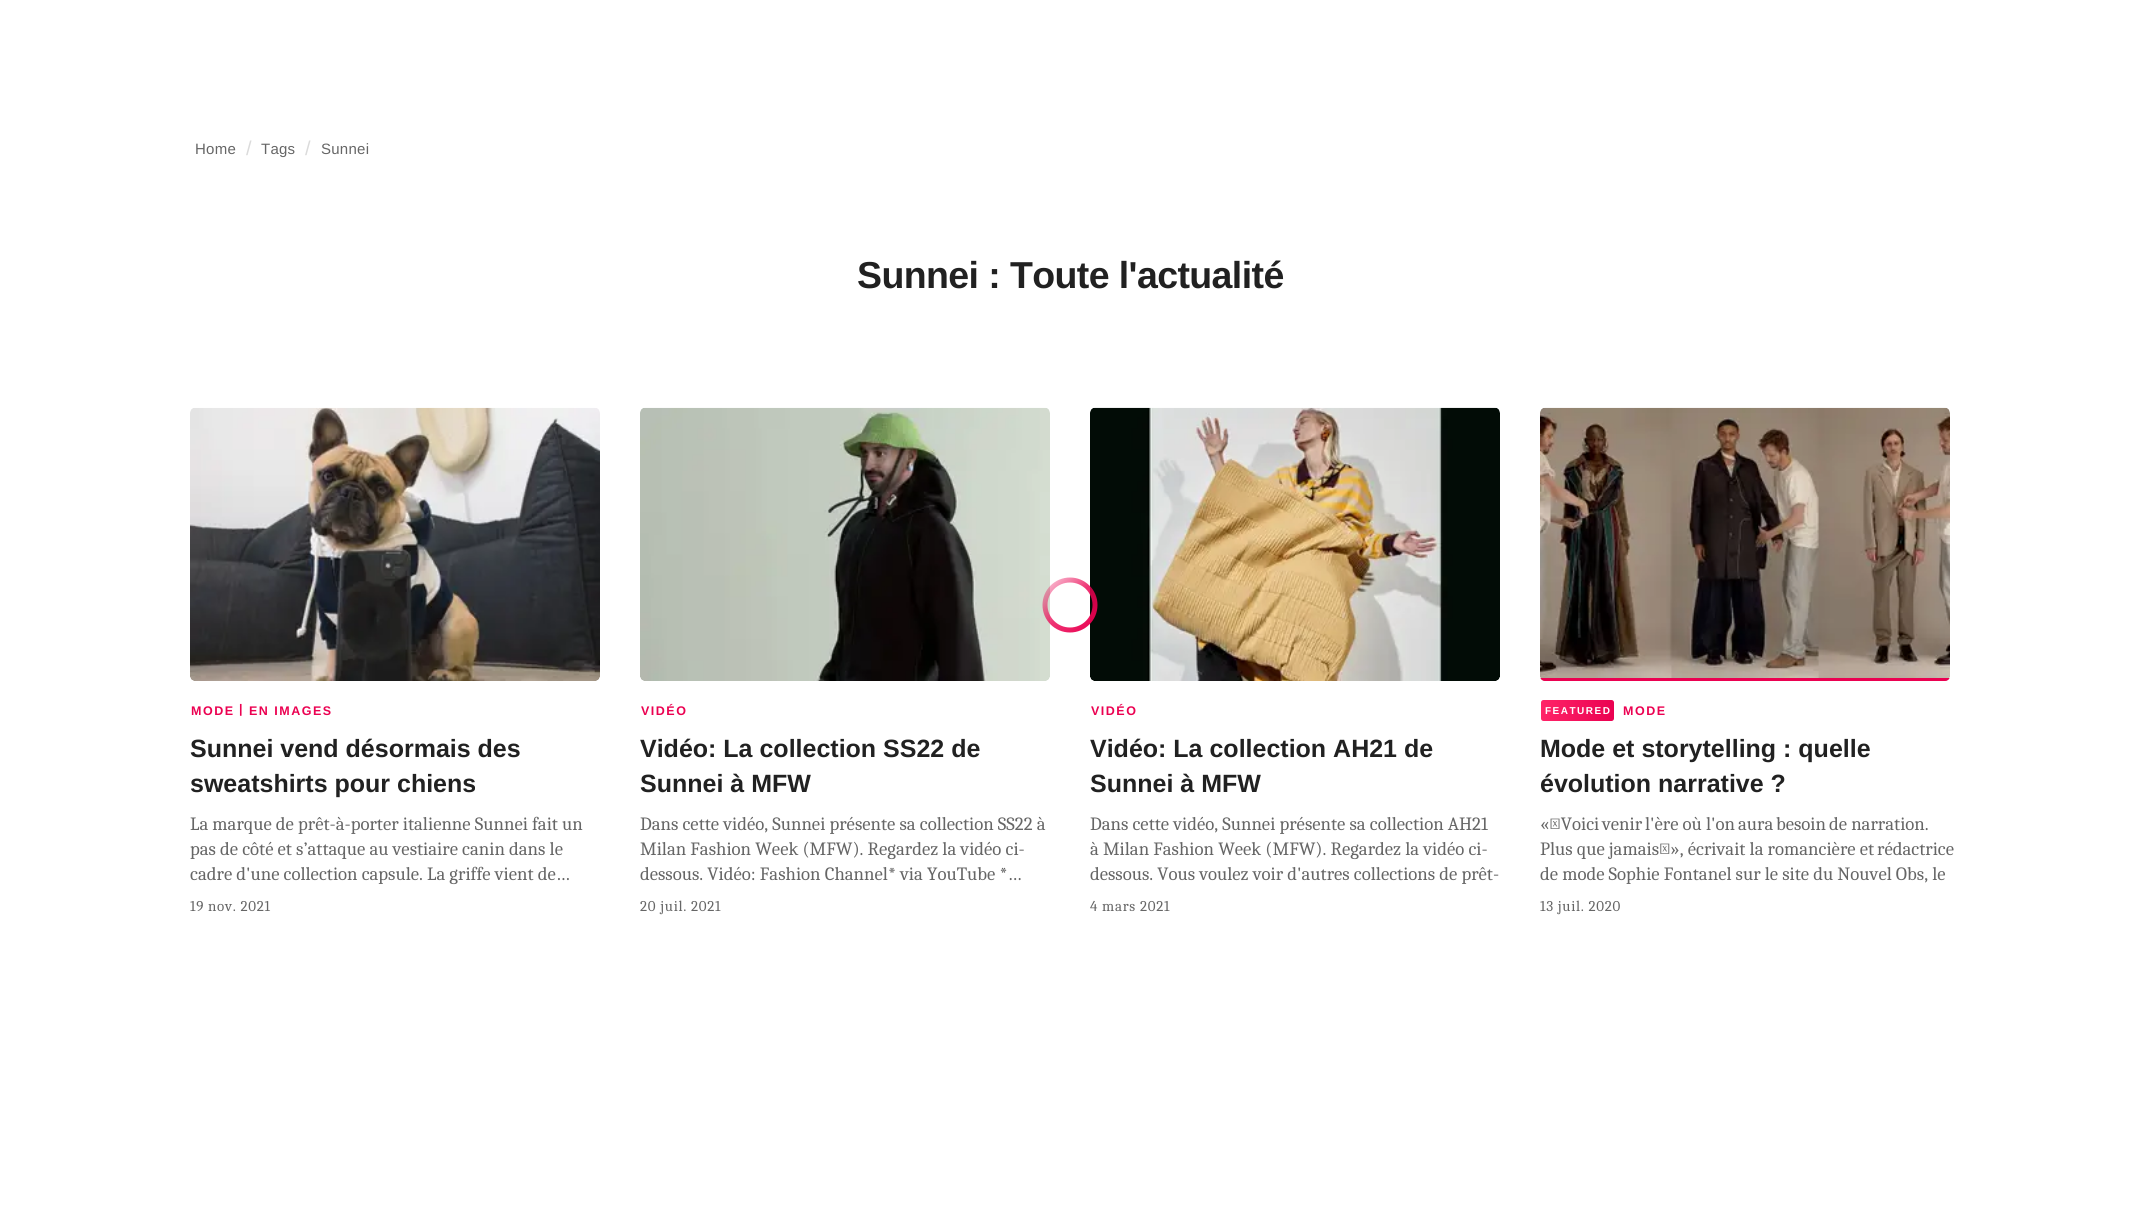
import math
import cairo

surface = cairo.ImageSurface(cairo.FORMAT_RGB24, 2139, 1208)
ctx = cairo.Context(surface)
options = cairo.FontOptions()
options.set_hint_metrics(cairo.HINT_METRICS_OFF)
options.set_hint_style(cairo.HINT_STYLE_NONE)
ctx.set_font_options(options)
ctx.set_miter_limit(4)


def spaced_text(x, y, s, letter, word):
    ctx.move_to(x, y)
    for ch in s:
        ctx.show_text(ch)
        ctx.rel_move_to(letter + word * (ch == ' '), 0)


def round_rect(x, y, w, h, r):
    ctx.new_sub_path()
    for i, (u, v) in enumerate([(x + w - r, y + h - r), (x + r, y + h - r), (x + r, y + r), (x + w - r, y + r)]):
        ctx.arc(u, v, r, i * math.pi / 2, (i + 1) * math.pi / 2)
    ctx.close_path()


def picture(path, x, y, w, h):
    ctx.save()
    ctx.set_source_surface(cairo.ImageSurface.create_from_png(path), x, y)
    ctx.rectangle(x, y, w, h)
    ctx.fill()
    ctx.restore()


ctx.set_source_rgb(1, 1, 1)
ctx.paint()
ctx.select_font_face("Liberation Sans")
ctx.set_font_size(15)
ctx.set_source_rgb(0.4, 0.4, 0.4)
spaced_text(195, 154, "Home", 0.25, 0)
ctx.set_font_size(20)
ctx.set_source_rgb(0.859, 0.859, 0.859)
ctx.move_to(246, 155)
ctx.show_text("/")
ctx.set_font_size(15)
ctx.set_source_rgb(0.4, 0.4, 0.4)
spaced_text(261, 154, "Tags", 0.25, 0)
ctx.set_font_size(20)
ctx.set_source_rgb(0.859, 0.859, 0.859)
ctx.move_to(305, 155)
ctx.show_text("/")
ctx.set_font_size(15)
ctx.set_source_rgb(0.4, 0.4, 0.4)
spaced_text(321, 154, "Sunnei", 0.25, 0)
ctx.select_font_face("Liberation Sans", cairo.FONT_SLANT_NORMAL, cairo.FONT_WEIGHT_BOLD)
ctx.set_font_size(37.5)
ctx.set_source_rgb(0.129, 0.129, 0.129)
spaced_text(857, 288, "Sunnei : Toute l'actualité", -0.6, 0)
picture("img1.png", 190, 407, 410, 274)
ctx.set_font_size(12.5)
ctx.set_source_rgb(0.918, 0.004, 0.318)
spaced_text(191, 715, "MODE", 1.5, 0)
spaced_text(239, 713, "|", 1.5, 0)
spaced_text(249, 715, "EN IMAGES", 1.5, 0)
ctx.set_font_size(25)
ctx.set_source_rgb(0.129, 0.129, 0.129)
ctx.move_to(190, 757)
ctx.show_text("Sunnei vend désormais des")
ctx.move_to(190, 792)
ctx.show_text("sweatshirts pour chiens")
ctx.select_font_face("Caladea")
ctx.set_font_size(18.75)
ctx.set_source_rgb(0.4, 0.4, 0.4)
ctx.move_to(190, 830)
ctx.show_text("La marque de prêt-à-porter italienne Sunnei fait un")
ctx.move_to(190, 855)
ctx.show_text("pas de côté et s’attaque au vestiaire canin dans le")
ctx.move_to(190, 880)
ctx.show_text("cadre d'une collection capsule. La griffe vient de…")
ctx.set_font_size(15)
spaced_text(190, 911, "19 nov. 2021", 0.7, 0)
picture("img2.png", 640, 407, 410, 274)
ctx.select_font_face("Liberation Sans", cairo.FONT_SLANT_NORMAL, cairo.FONT_WEIGHT_BOLD)
ctx.set_font_size(12.5)
ctx.set_source_rgb(0.918, 0.004, 0.318)
spaced_text(641, 715, "VIDÉO", 1.5, 0)
ctx.set_font_size(25)
ctx.set_source_rgb(0.129, 0.129, 0.129)
ctx.move_to(640, 757)
ctx.show_text("Vidéo: La collection SS22 de")
ctx.move_to(640, 792)
ctx.show_text("Sunnei à MFW")
ctx.select_font_face("Caladea")
ctx.set_font_size(18.75)
ctx.set_source_rgb(0.4, 0.4, 0.4)
ctx.move_to(640, 830)
ctx.show_text("Dans cette vidéo, Sunnei présente sa collection SS22 à")
ctx.move_to(640, 855)
ctx.show_text("Milan Fashion Week (MFW). Regardez la vidéo ci-")
ctx.move_to(640, 880)
ctx.show_text("dessous. Vidéo: Fashion Channel* via YouTube *…")
ctx.set_font_size(15)
spaced_text(640, 911, "20 juil. 2021", 0.7, 0)
picture("img3.png", 1090, 407, 410, 274)
ctx.select_font_face("Liberation Sans", cairo.FONT_SLANT_NORMAL, cairo.FONT_WEIGHT_BOLD)
ctx.set_font_size(12.5)
ctx.set_source_rgb(0.918, 0.004, 0.318)
spaced_text(1091, 715, "VIDÉO", 1.5, 0)
ctx.set_font_size(25)
ctx.set_source_rgb(0.129, 0.129, 0.129)
ctx.move_to(1090, 757)
ctx.show_text("Vidéo: La collection AH21 de")
ctx.move_to(1090, 792)
ctx.show_text("Sunnei à MFW")
ctx.select_font_face("Caladea")
ctx.set_font_size(18.75)
ctx.set_source_rgb(0.4, 0.4, 0.4)
ctx.move_to(1090, 830)
ctx.show_text("Dans cette vidéo, Sunnei présente sa collection AH21")
ctx.move_to(1090, 855)
ctx.show_text("à Milan Fashion Week (MFW). Regardez la vidéo ci-")
ctx.move_to(1090, 880)
ctx.show_text("dessous. Vous voulez voir d'autres collections de prêt-")
ctx.set_font_size(15)
spaced_text(1090, 911, "4 mars 2021", 0.7, 0)
picture("img4.png", 1540, 407, 410, 274)
ctx.save()
round_rect(1540, 408, 410, 273, 5)
ctx.clip()
ctx.set_source_rgb(0.918, 0.004, 0.318)
ctx.rectangle(1540, 678, 410, 3)
ctx.fill()
ctx.restore()
gradient = cairo.LinearGradient(1541, 711, 1614, 711)
gradient.add_color_stop_rgba(0, 1, 0.141, 0.408, 1)
gradient.add_color_stop_rgba(1, 0.918, 0.004, 0.318, 1)
ctx.set_source(gradient)
round_rect(1541, 700, 73, 21, 2.5)
ctx.fill()
ctx.select_font_face("Liberation Sans", cairo.FONT_SLANT_NORMAL, cairo.FONT_WEIGHT_BOLD)
ctx.set_font_size(10)
ctx.set_source_rgb(1, 1, 1)
spaced_text(1545, 714, "FEATURED", 1.5, 0)
ctx.set_font_size(12.5)
ctx.set_source_rgb(0.918, 0.004, 0.318)
spaced_text(1623, 715, "MODE", 1.5, 0)
ctx.set_font_size(25)
ctx.set_source_rgb(0.129, 0.129, 0.129)
ctx.move_to(1540, 757)
ctx.show_text("Mode et storytelling : quelle")
ctx.move_to(1540, 792)
ctx.show_text("évolution narrative ?")
ctx.select_font_face("Caladea")
ctx.set_font_size(18.75)
ctx.set_source_rgb(0.4, 0.4, 0.4)
ctx.move_to(1540, 830)
ctx.show_text("« Voici")
ctx.move_to(1602, 830)
ctx.show_text("venir")
ctx.move_to(1645, 830)
ctx.show_text("l'ère où l'on")
ctx.move_to(1738, 830)
ctx.show_text("aura")
ctx.move_to(1776, 830)
ctx.show_text("besoin")
ctx.move_to(1829, 830)
ctx.show_text("de narration.")
ctx.move_to(1540, 855)
ctx.show_text("Plus que jamais », écrivait la romancière et")
ctx.move_to(1877, 855)
ctx.show_text("rédactrice")
ctx.move_to(1540, 880)
ctx.show_text("de mode Sophie Fontanel sur le site du Nouvel Obs, le")
ctx.set_font_size(15)
spaced_text(1540, 911, "13 juil. 2020", 0.7, 0)
ctx.new_path()
ctx.arc(1070, 605, 25, 0, 2 * math.pi)
gradient = cairo.LinearGradient(1045, 580, 1095, 630)
gradient.add_color_stop_rgba(0, 0.918, 0.004, 0.318, 0.2)
gradient.add_color_stop_rgba(0.5, 0.918, 0.004, 0.318, 0.8)
gradient.add_color_stop_rgba(1, 0.918, 0.004, 0.318, 1)
ctx.set_source(gradient)
ctx.set_line_width(5)
ctx.stroke()
surface.write_to_png("page.png")
